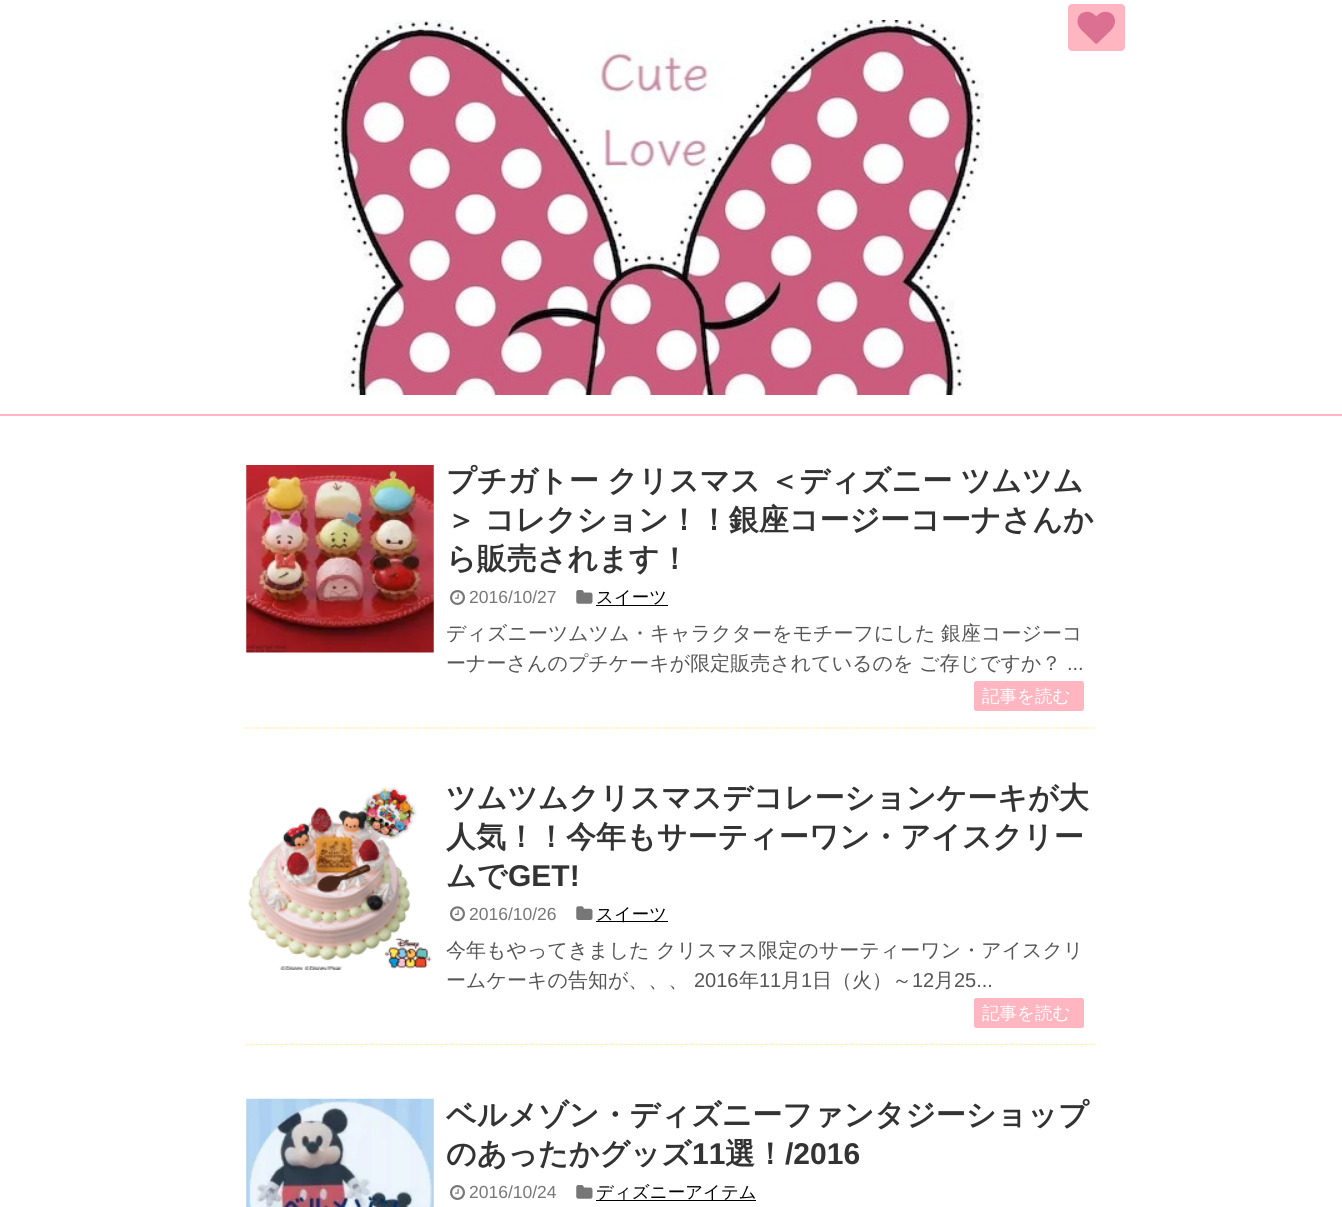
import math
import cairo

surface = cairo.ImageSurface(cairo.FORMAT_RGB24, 1342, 1207)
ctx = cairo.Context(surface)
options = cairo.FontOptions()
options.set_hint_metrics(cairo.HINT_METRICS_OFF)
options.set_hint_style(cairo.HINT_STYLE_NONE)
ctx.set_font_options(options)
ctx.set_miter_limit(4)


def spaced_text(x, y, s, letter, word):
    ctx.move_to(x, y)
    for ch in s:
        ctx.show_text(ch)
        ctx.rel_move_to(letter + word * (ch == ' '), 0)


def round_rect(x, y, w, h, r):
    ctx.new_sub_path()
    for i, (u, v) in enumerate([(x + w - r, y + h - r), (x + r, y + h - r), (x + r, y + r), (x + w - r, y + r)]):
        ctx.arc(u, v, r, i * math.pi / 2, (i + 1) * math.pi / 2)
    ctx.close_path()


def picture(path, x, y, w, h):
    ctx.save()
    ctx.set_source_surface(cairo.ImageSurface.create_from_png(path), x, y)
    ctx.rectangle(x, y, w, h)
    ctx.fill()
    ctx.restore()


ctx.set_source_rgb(1, 1, 1)
ctx.paint()
picture("img1.png", 333, 20, 651, 375)
ctx.set_source_rgb(1, 0.714, 0.757)
round_rect(1068, 4, 57, 47, 4)
ctx.fill()
picture("img2.png", 1077, 11, 38, 33)
ctx.rectangle(0, 414, 1342, 2)
ctx.fill()
ctx.new_path()
ctx.move_to(246, 728)
ctx.line_to(1096, 728)
ctx.set_source_rgb(1, 0.906, 0.561)
ctx.set_line_width(1.2)
ctx.set_dash([1.25, 1.25])
ctx.stroke()
picture("img3.png", 246, 465, 188, 188)
ctx.select_font_face("WenQuanYi Zen Hei", cairo.FONT_SLANT_NORMAL, cairo.FONT_WEIGHT_BOLD)
ctx.set_font_size(30)
ctx.set_source_rgb(0.2, 0.2, 0.2)
spaced_text(446, 491, "プチガトー クリスマス ＜ディズニー ツムツム", 0, -0.5)
spaced_text(446, 530, "＞ コレクション！！銀座コージーコーナさんか", 0, -0.5)
ctx.move_to(446, 569)
ctx.show_text("ら販売されます！")
picture("img4.png", 450, 590, 15, 15)
ctx.select_font_face("Liberation Sans")
ctx.set_font_size(17.5)
ctx.set_source_rgb(0.467, 0.467, 0.467)
ctx.move_to(469, 603)
ctx.show_text("2016/10/27")
picture("img5.png", 576, 590, 17, 14)
ctx.set_source_rgb(0, 0, 0)
ctx.rectangle(596, 605, 72, 1)
ctx.fill()
ctx.select_font_face("WenQuanYi Zen Hei Medium")
ctx.move_to(596, 603)
ctx.show_text("スイーツ")
ctx.set_font_size(20)
ctx.set_source_rgb(0.333, 0.333, 0.333)
ctx.move_to(446, 640)
ctx.show_text("ディズニーツムツム・キャラクターをモチーフにした")
ctx.move_to(941, 640)
ctx.show_text("銀座コージーコ")
ctx.move_to(446, 670)
ctx.show_text("ーナーさんのプチケーキが限定販売されているのを")
ctx.move_to(919, 670)
ctx.show_text("ご存じですか？")
ctx.select_font_face("Liberation Sans")
ctx.move_to(1067, 670)
ctx.show_text("...")
ctx.set_source_rgb(1, 0.714, 0.757)
round_rect(974.5, 681.5, 109, 29, 2)
ctx.fill_preserve()
ctx.set_line_width(1)
ctx.set_dash([])
ctx.stroke()
ctx.select_font_face("WenQuanYi Zen Hei Medium")
ctx.set_font_size(17.5)
ctx.set_source_rgb(1, 1, 1)
ctx.move_to(982, 702)
ctx.show_text("記事を読む")
ctx.new_path()
ctx.move_to(246, 1044.5)
ctx.line_to(1096, 1044.5)
ctx.set_source_rgb(1, 0.906, 0.561)
ctx.set_line_width(1.2)
ctx.set_dash([1.25, 1.25])
ctx.stroke()
picture("img6.png", 248, 787, 184, 183)
ctx.select_font_face("WenQuanYi Zen Hei", cairo.FONT_SLANT_NORMAL, cairo.FONT_WEIGHT_BOLD)
ctx.set_font_size(30)
ctx.set_source_rgb(0.2, 0.2, 0.2)
ctx.move_to(446, 808)
ctx.show_text("ツムツムクリスマスデコレーションケーキが大")
ctx.move_to(446, 847)
ctx.show_text("人気！！今年もサーティーワン・アイスクリー")
ctx.move_to(446, 886)
ctx.show_text("ムで")
ctx.select_font_face("Liberation Sans", cairo.FONT_SLANT_NORMAL, cairo.FONT_WEIGHT_BOLD)
ctx.move_to(508, 886)
ctx.show_text("GET!")
picture("img7.png", 450, 906, 15, 16)
ctx.select_font_face("Liberation Sans")
ctx.set_font_size(17.5)
ctx.set_source_rgb(0.467, 0.467, 0.467)
ctx.move_to(469, 920)
ctx.show_text("2016/10/26")
picture("img8.png", 576, 906, 17, 14)
ctx.set_source_rgb(0, 0, 0)
ctx.rectangle(596, 921, 72, 1)
ctx.fill()
ctx.select_font_face("WenQuanYi Zen Hei Medium")
ctx.move_to(596, 920)
ctx.show_text("スイーツ")
ctx.set_font_size(20)
ctx.set_source_rgb(0.333, 0.333, 0.333)
ctx.move_to(446, 957)
ctx.show_text("今年もやってきました")
ctx.move_to(656, 957)
ctx.show_text("クリスマス限定のサーティーワン・アイスクリ")
ctx.move_to(446, 987)
ctx.show_text("ームケーキの告知が、、、")
ctx.select_font_face("Liberation Sans")
ctx.move_to(694, 987)
ctx.show_text("2016")
ctx.select_font_face("WenQuanYi Zen Hei Medium")
ctx.move_to(739, 987)
ctx.show_text("年")
ctx.select_font_face("Liberation Sans")
ctx.move_to(759, 987)
ctx.show_text("11")
ctx.select_font_face("WenQuanYi Zen Hei Medium")
ctx.move_to(781, 987)
ctx.show_text("月")
ctx.select_font_face("Liberation Sans")
ctx.move_to(801, 987)
ctx.show_text("1")
ctx.select_font_face("WenQuanYi Zen Hei Medium")
ctx.move_to(812, 987)
ctx.show_text("日（火）～")
ctx.select_font_face("Liberation Sans")
ctx.move_to(912, 987)
ctx.show_text("12")
ctx.select_font_face("WenQuanYi Zen Hei Medium")
ctx.move_to(934, 987)
ctx.show_text("月")
ctx.select_font_face("Liberation Sans")
ctx.move_to(954, 987)
ctx.show_text("25...")
ctx.set_source_rgb(1, 0.714, 0.757)
round_rect(974.5, 998.5, 109, 29, 2)
ctx.fill_preserve()
ctx.set_line_width(1)
ctx.set_dash([])
ctx.stroke()
ctx.select_font_face("WenQuanYi Zen Hei Medium")
ctx.set_font_size(17.5)
ctx.set_source_rgb(1, 1, 1)
ctx.move_to(982, 1019)
ctx.show_text("記事を読む")
picture("img9.png", 246, 1098, 188, 109)
ctx.select_font_face("WenQuanYi Zen Hei", cairo.FONT_SLANT_NORMAL, cairo.FONT_WEIGHT_BOLD)
ctx.set_font_size(30)
ctx.set_source_rgb(0.2, 0.2, 0.2)
ctx.move_to(446, 1125)
ctx.show_text("ベルメゾン・ディズニーファンタジーショップ")
ctx.move_to(446, 1164)
ctx.show_text("のあったかグッズ")
ctx.select_font_face("Liberation Sans", cairo.FONT_SLANT_NORMAL, cairo.FONT_WEIGHT_BOLD)
ctx.move_to(692, 1164)
ctx.show_text("11")
ctx.select_font_face("WenQuanYi Zen Hei", cairo.FONT_SLANT_NORMAL, cairo.FONT_WEIGHT_BOLD)
ctx.move_to(725, 1164)
ctx.show_text("選！")
ctx.select_font_face("Liberation Sans", cairo.FONT_SLANT_NORMAL, cairo.FONT_WEIGHT_BOLD)
ctx.move_to(785, 1164)
ctx.show_text("/2016")
picture("img4.png", 450, 1185, 15, 15)
ctx.select_font_face("Liberation Sans")
ctx.set_font_size(17.5)
ctx.set_source_rgb(0.467, 0.467, 0.467)
ctx.move_to(469, 1198)
ctx.show_text("2016/10/24")
picture("img5.png", 576, 1185, 17, 14)
ctx.set_source_rgb(0, 0, 0)
ctx.rectangle(596, 1200, 160, 1)
ctx.fill()
ctx.select_font_face("WenQuanYi Zen Hei Medium")
ctx.move_to(596, 1198)
ctx.show_text("ディズニーアイテム")
surface.write_to_png("page.png")
